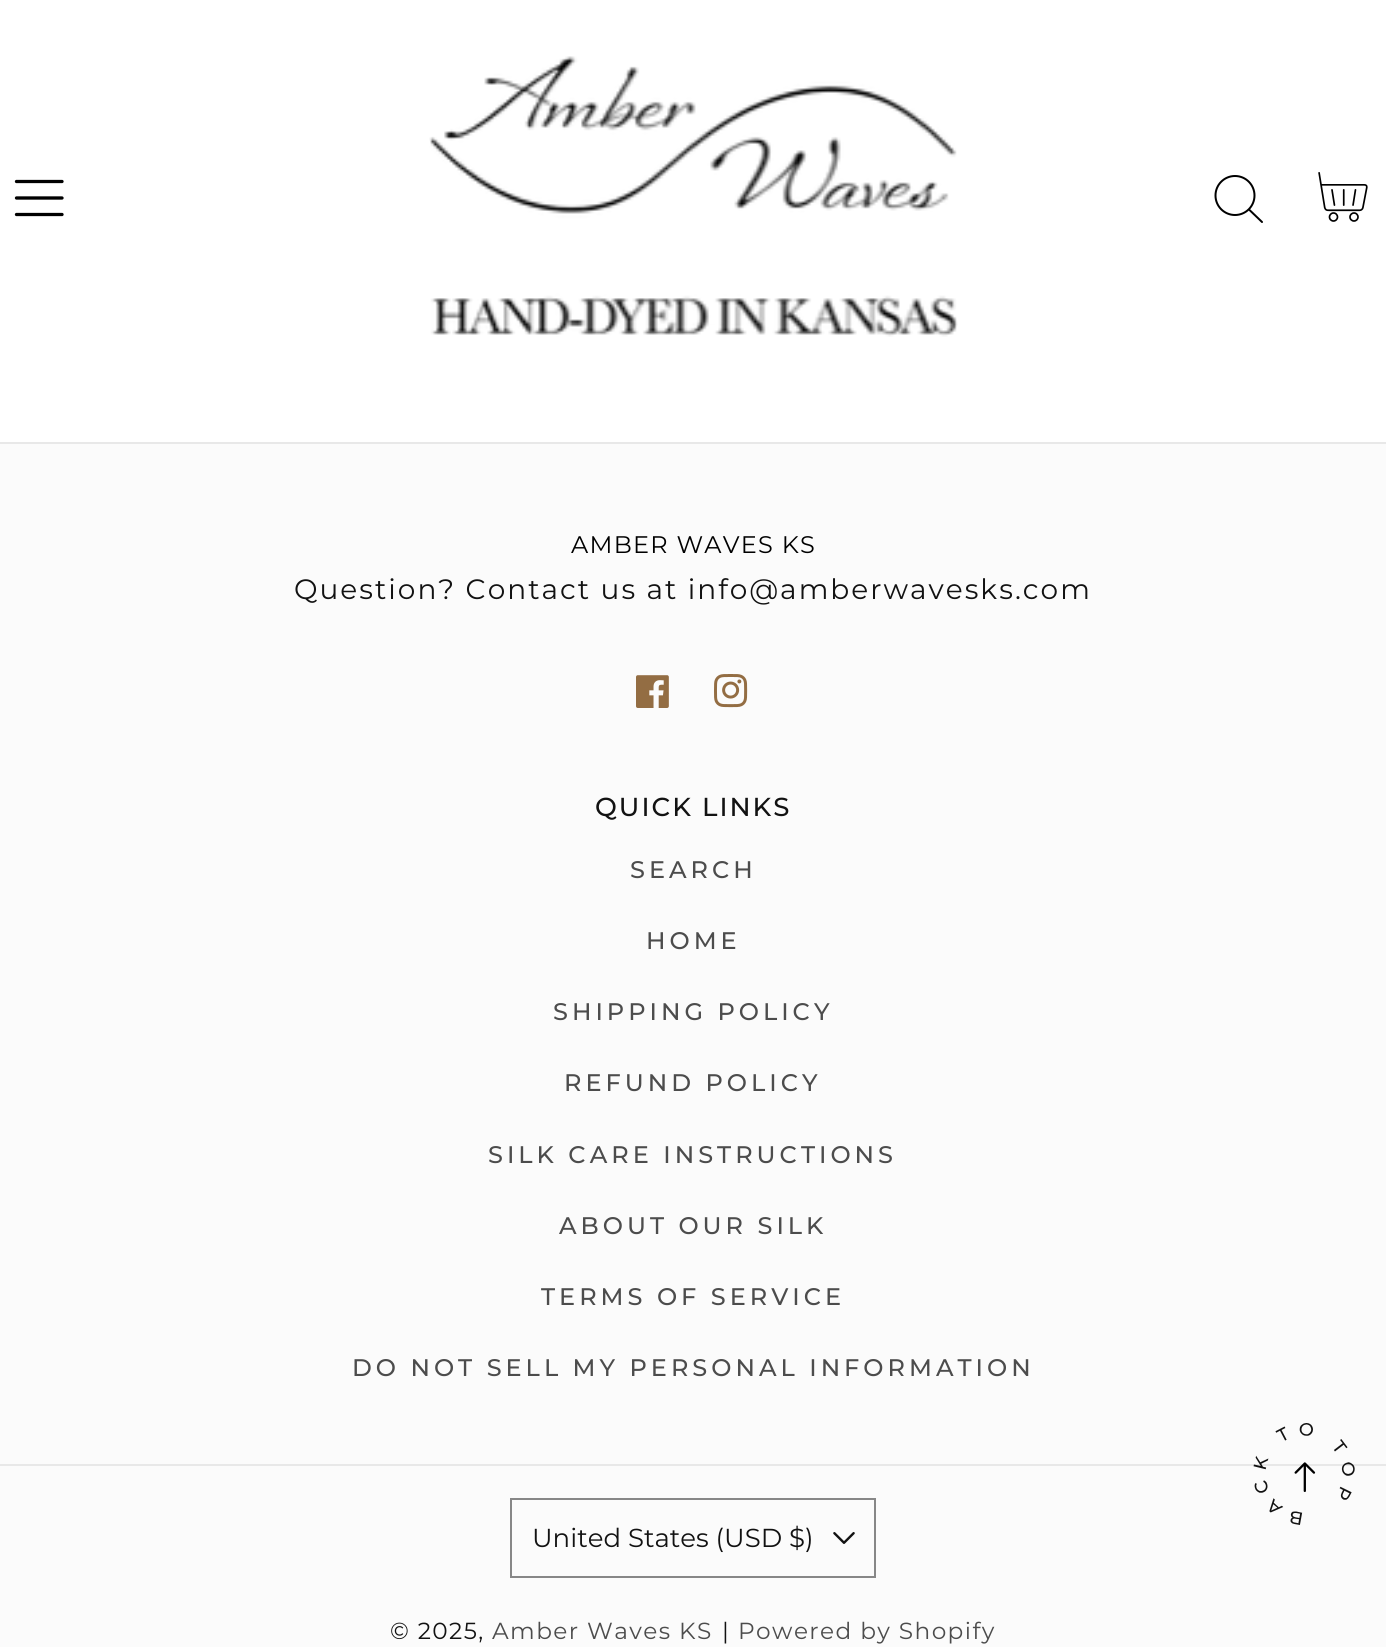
import math
import cairo

surface = cairo.ImageSurface(cairo.FORMAT_RGB24, 1386, 1647)
ctx = cairo.Context(surface)
options = cairo.FontOptions()
options.set_hint_metrics(cairo.HINT_METRICS_OFF)
options.set_hint_style(cairo.HINT_STYLE_NONE)
ctx.set_font_options(options)
ctx.set_miter_limit(4)


def spaced_text(x, y, s, letter, word):
    ctx.move_to(x, y)
    for ch in s:
        ctx.show_text(ch)
        ctx.rel_move_to(letter + word * (ch == ' '), 0)


def picture(path, x, y, w, h):
    ctx.save()
    ctx.set_source_surface(cairo.ImageSurface.create_from_png(path), x, y)
    ctx.rectangle(x, y, w, h)
    ctx.fill()
    ctx.restore()


ctx.set_source_rgb(1, 1, 1)
ctx.paint()
ctx.new_path()
ctx.move_to(16.5, 181.5)
ctx.line_to(62, 181.5)
ctx.move_to(16.5, 198)
ctx.line_to(62, 198)
ctx.move_to(16.5, 214.5)
ctx.line_to(62, 214.5)
ctx.set_source_rgb(0, 0, 0)
ctx.set_line_width(3.3)
ctx.set_line_cap(cairo.LINE_CAP_ROUND)
ctx.stroke()
picture("img1.png", 429, 56, 529, 281)
ctx.arc(1235, 195.5, 19.5, 0, 2 * math.pi)
ctx.set_line_width(2)
ctx.set_line_cap(cairo.LINE_CAP_BUTT)
ctx.stroke()
ctx.new_path()
ctx.move_to(1249.5, 210)
ctx.line_to(1262, 222)
ctx.set_line_cap(cairo.LINE_CAP_ROUND)
ctx.stroke()
picture("img2.png", 1318, 172, 50, 50)
ctx.set_source_rgb(0.984, 0.984, 0.984)
ctx.rectangle(0, 444, 1386, 1203)
ctx.fill()
ctx.set_source_rgb(0.91, 0.91, 0.91)
ctx.rectangle(0, 442, 1386, 2)
ctx.fill()
ctx.select_font_face("Montserrat")
ctx.set_font_size(24)
ctx.set_source_rgb(0, 0, 0)
spaced_text(571, 553, "AMBER WAVES KS", 1.25, 0)
ctx.set_font_size(28)
ctx.set_source_rgb(0.071, 0.071, 0.071)
spaced_text(294, 599, "Question? Contact us at info@amberwavesks.com", 2, 0)
picture("img3.png", 636, 675, 33, 33)
picture("img4.png", 714, 674, 34, 34)
ctx.select_font_face("Montserrat Medium")
ctx.set_font_size(26)
spaced_text(595, 816, "QUICK LINKS", 2, 0)
ctx.set_font_size(24)
ctx.set_source_rgb(0.298, 0.298, 0.298)
spaced_text(630, 878, "SEARCH", 4, 0)
spaced_text(646, 949, "HOME", 4, 0)
spaced_text(553, 1020, "SHIPPING POLICY", 4, 0)
spaced_text(564, 1091, "REFUND POLICY", 4, 0)
spaced_text(488, 1163, "SILK CARE INSTRUCTIONS", 4, 0)
spaced_text(559, 1234, "ABOUT OUR SILK", 4, 0)
spaced_text(541, 1305, "TERMS OF SERVICE", 4, 0)
spaced_text(352, 1376, "DO NOT SELL MY PERSONAL INFORMATION", 4, 0)
ctx.set_source_rgb(0.91, 0.91, 0.91)
ctx.rectangle(0, 1464, 1386, 2)
ctx.fill()
picture("img5.png", 833, 1532, 22, 12)
ctx.rectangle(511, 1499, 364, 78)
ctx.set_source_rgb(0.529, 0.529, 0.529)
ctx.set_line_cap(cairo.LINE_CAP_BUTT)
ctx.stroke()
ctx.select_font_face("Montserrat")
ctx.set_font_size(26)
ctx.set_source_rgb(0.071, 0.071, 0.071)
ctx.move_to(532, 1547)
ctx.show_text("United States (USD $)")
ctx.set_font_size(23.25)
spaced_text(390, 1639, "© 2025,", 1.4, 0)
ctx.set_source_rgb(0.298, 0.298, 0.298)
spaced_text(492, 1639, "Amber Waves KS", 1.4, 0)
ctx.set_source_rgb(0.071, 0.071, 0.071)
spaced_text(722, 1639, "|", 1.4, 0)
ctx.set_source_rgb(0.298, 0.298, 0.298)
spaced_text(738, 1639, "Powered by Shopify", 1.4, 0)
picture("img6.png", 1253, 1423, 102, 102)
picture("img7.png", 1294, 1462, 22, 30)
surface.write_to_png("page.png")
